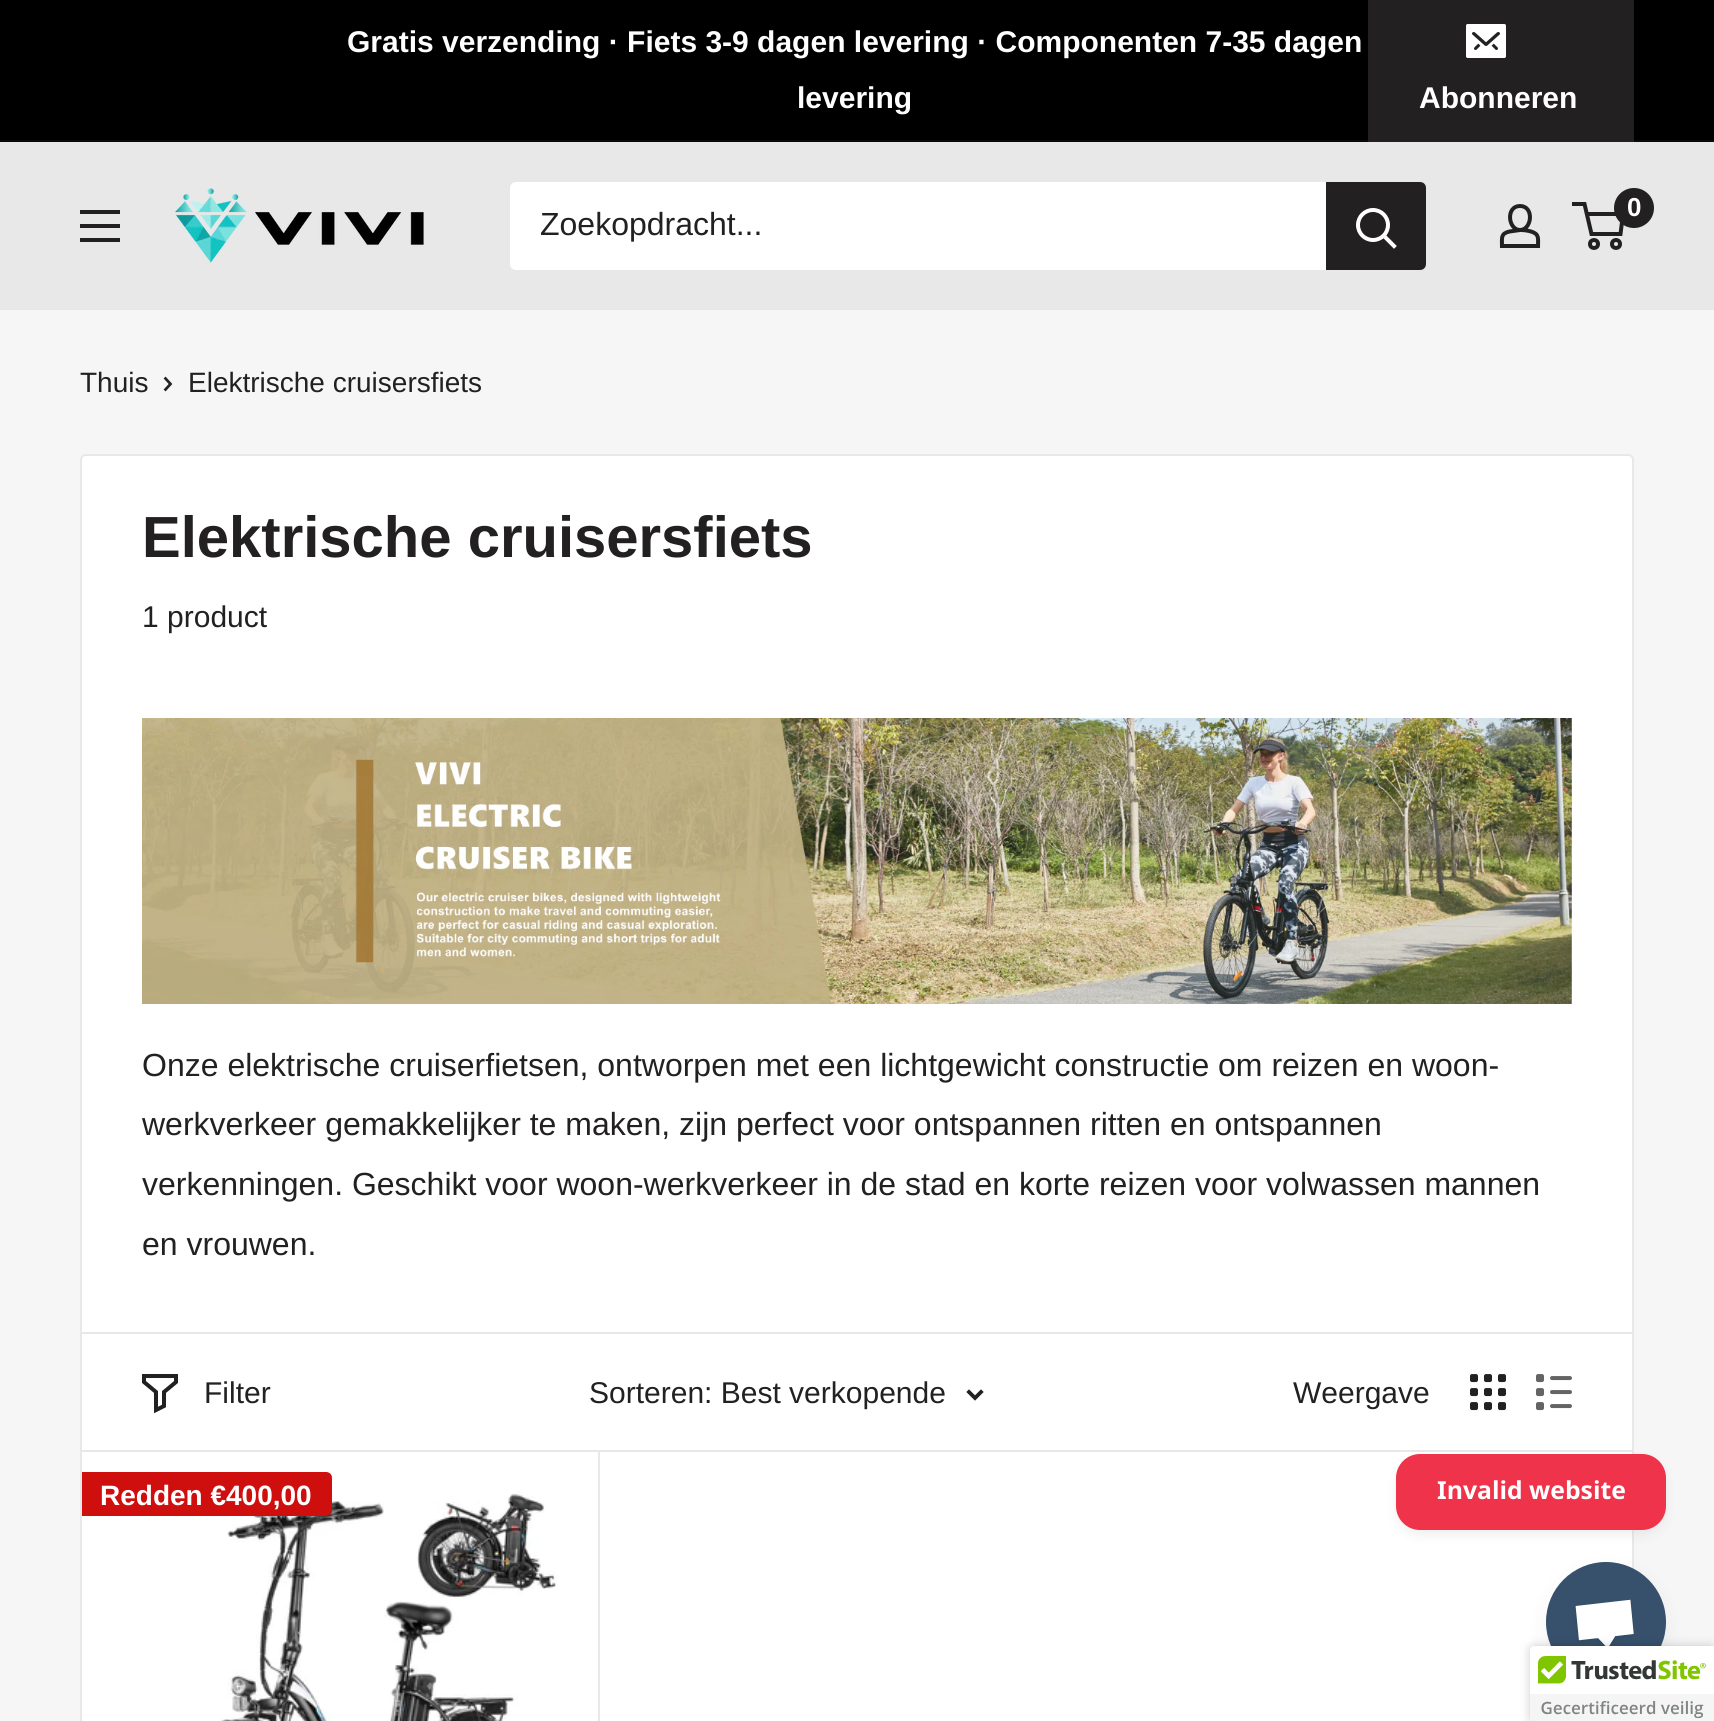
import math
import cairo

surface = cairo.ImageSurface(cairo.FORMAT_RGB24, 1714, 1721)
ctx = cairo.Context(surface)
options = cairo.FontOptions()
options.set_hint_metrics(cairo.HINT_METRICS_OFF)
options.set_hint_style(cairo.HINT_STYLE_NONE)
ctx.set_font_options(options)
ctx.set_miter_limit(4)


def round_rect(x, y, w, h, r):
    ctx.new_sub_path()
    for i, (u, v) in enumerate([(x + w - r, y + h - r), (x + r, y + h - r), (x + r, y + r), (x + w - r, y + r)]):
        ctx.arc(u, v, r, i * math.pi / 2, (i + 1) * math.pi / 2)
    ctx.close_path()


def shadow(x, y, w, h, r, blur, alpha):
    ctx.push_group_with_content(cairo.CONTENT_ALPHA)
    ctx.set_operator(cairo.OPERATOR_SOURCE)
    for i in range(15, -16, -2):
        e = blur * i / 6
        if min(w, h) + 2 * e > 0:
            ctx.set_source_rgba(0, 0, 0, alpha * math.erfc((i - 1) / 8.5) / 2)
            round_rect(x - e, y - e, w + 2 * e, h + 2 * e, max(0, min(r + e + blur * .6, min(w, h) / 2 + e)))
            ctx.fill()
    ctx.mask(ctx.pop_group())


def picture(path, x, y, w, h):
    ctx.save()
    ctx.set_source_surface(cairo.ImageSurface.create_from_png(path), x, y)
    ctx.rectangle(x, y, w, h)
    ctx.fill()
    ctx.restore()


ctx.set_source_rgb(0.961, 0.961, 0.961)
ctx.paint()
ctx.set_source_rgb(0, 0, 0)
ctx.rectangle(0, 0, 1714, 140)
ctx.fill()
ctx.set_source_rgb(0.039, 0.039, 0.039)
ctx.rectangle(0, 140, 1714, 2)
ctx.fill()
ctx.select_font_face("Liberation Sans", cairo.FONT_SLANT_NORMAL, cairo.FONT_WEIGHT_BOLD)
ctx.set_font_size(30)
ctx.set_source_rgb(1, 1, 1)
ctx.move_to(347, 52)
ctx.show_text("Gratis verzending · Fiets 3-9 dagen levering · Componenten 7-35 dagen")
ctx.move_to(797, 108)
ctx.show_text("levering")
ctx.set_source_rgb(0.133, 0.125, 0.129)
ctx.rectangle(1368, 0, 266, 142)
ctx.fill()
picture("img1.png", 1466, 24, 40, 34)
ctx.set_source_rgb(1, 1, 1)
ctx.move_to(1419, 108)
ctx.show_text("Abonneren")
ctx.set_source_rgb(0.91, 0.91, 0.91)
ctx.rectangle(0, 142, 1714, 168)
ctx.fill()
picture("img2.png", 175, 188, 249, 75)
ctx.new_path()
ctx.move_to(1520, 230)
ctx.curve_to(1524, 230, 1527.5, 230.5, 1531, 231.5)
ctx.curve_to(1539.5, 234, 1538, 238.5, 1538, 246)
ctx.line_to(1502, 246)
ctx.curve_to(1502, 238, 1500.5, 233.5, 1509.5, 231.5)
ctx.close_path()
ctx.move_to(1520, 230)
ctx.curve_to(1508, 230, 1505.5, 206, 1520, 206)
ctx.curve_to(1534.5, 206, 1532, 230, 1520, 230)
ctx.close_path()
ctx.set_source_rgb(0.133, 0.125, 0.129)
ctx.set_line_width(4)
ctx.stroke()
ctx.arc(1594, 244, 4, 0, 2 * math.pi)
ctx.stroke()
ctx.arc(1616, 244, 4, 0, 2 * math.pi)
ctx.stroke()
ctx.new_path()
ctx.move_to(1586.5, 214)
ctx.line_to(1623, 214)
ctx.line_to(1620.5, 234)
ctx.line_to(1591.5, 234)
ctx.line_to(1584.5, 204)
ctx.line_to(1572, 204)
ctx.stroke()
ctx.arc(1634, 208, 20, 0, 2 * math.pi)
ctx.fill()
ctx.set_font_size(26)
ctx.set_source_rgb(1, 1, 1)
ctx.move_to(1627, 216)
ctx.show_text("0")
ctx.set_source_rgb(0.133, 0.125, 0.129)
ctx.set_fill_rule(cairo.FILL_RULE_EVEN_ODD)
ctx.new_path()
ctx.move_to(80, 238)
ctx.line_to(120, 238)
ctx.line_to(120, 242)
ctx.line_to(80, 242)
ctx.close_path()
ctx.move_to(80, 210)
ctx.line_to(120, 210)
ctx.line_to(120, 214)
ctx.line_to(80, 214)
ctx.close_path()
ctx.move_to(80, 224)
ctx.line_to(120, 224)
ctx.line_to(120, 228)
ctx.line_to(80, 228)
ctx.close_path()
ctx.fill()
ctx.set_source_rgb(1, 1, 1)
round_rect(510, 182, 916, 88, 6)
ctx.fill()
ctx.select_font_face("Liberation Sans")
ctx.set_font_size(32)
ctx.set_source_rgb(0.133, 0.125, 0.129)
ctx.move_to(540, 235)
ctx.show_text("Zoekopdracht...")
ctx.new_path()
ctx.move_to(1326, 182)
ctx.line_to(1420, 182)
ctx.curve_to(1423.5, 182, 1426, 184.5, 1426, 188)
ctx.line_to(1426, 264)
ctx.curve_to(1426, 267.5, 1423.5, 270, 1420, 270)
ctx.line_to(1326, 270)
ctx.close_path()
ctx.fill()
ctx.new_path()
ctx.move_to(1394, 246)
ctx.line_to(1384, 236)
ctx.set_source_rgb(1, 1, 1)
ctx.set_line_cap(cairo.LINE_CAP_SQUARE)
ctx.stroke()
ctx.arc(1373, 225, 15, 0, 2 * math.pi)
ctx.set_line_cap(cairo.LINE_CAP_BUTT)
ctx.stroke()
ctx.set_font_size(28)
ctx.set_source_rgb(0.133, 0.125, 0.129)
ctx.move_to(80, 392)
ctx.show_text("Thuis")
ctx.new_path()
ctx.move_to(165.5, 378.5)
ctx.line_to(170.5, 384)
ctx.line_to(165.5, 389.5)
ctx.set_line_width(2.7)
ctx.set_line_cap(cairo.LINE_CAP_SQUARE)
ctx.stroke()
ctx.move_to(188, 392)
ctx.show_text("Elektrische cruisersfiets")
ctx.set_source_rgb(1, 1, 1)
round_rect(81, 455, 1552, 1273, 5)
ctx.fill_preserve()
ctx.set_source_rgb(0.91, 0.91, 0.91)
ctx.set_line_width(2)
ctx.set_line_cap(cairo.LINE_CAP_BUTT)
ctx.stroke()
ctx.select_font_face("Liberation Sans", cairo.FONT_SLANT_NORMAL, cairo.FONT_WEIGHT_BOLD)
ctx.set_font_size(58)
ctx.set_source_rgb(0.133, 0.125, 0.129)
ctx.move_to(142, 557)
ctx.show_text("Elektrische cruisersfiets")
ctx.select_font_face("Liberation Sans")
ctx.set_font_size(30)
ctx.move_to(142, 627)
ctx.show_text("1 product")
picture("img3.png", 142, 718, 1430, 286)
ctx.set_font_size(32)
ctx.move_to(142, 1076)
ctx.show_text("Onze elektrische cruiserfietsen, ontworpen met een lichtgewicht constructie om reizen en woon-")
ctx.move_to(142, 1135)
ctx.show_text("werkverkeer gemakkelijker te maken, zijn perfect voor ontspannen ritten en ontspannen")
ctx.move_to(142, 1195)
ctx.show_text("verkenningen. Geschikt voor woon-werkverkeer in de stad en korte reizen voor volwassen mannen")
ctx.move_to(142, 1255)
ctx.show_text("en vrouwen.")
ctx.set_source_rgb(0.91, 0.91, 0.91)
ctx.rectangle(82, 1332, 1550, 2)
ctx.fill()
ctx.rectangle(598, 1450, 2, 271)
ctx.fill()
ctx.rectangle(82, 1450, 1550, 2)
ctx.fill()
ctx.new_path()
ctx.move_to(176, 1382)
ctx.line_to(164, 1392)
ctx.line_to(164, 1406)
ctx.line_to(156, 1410)
ctx.line_to(156, 1392)
ctx.line_to(144, 1382)
ctx.line_to(144, 1376)
ctx.line_to(176, 1376)
ctx.close_path()
ctx.set_source_rgb(0.133, 0.125, 0.129)
ctx.set_line_width(4)
ctx.set_line_cap(cairo.LINE_CAP_SQUARE)
ctx.stroke()
ctx.set_font_size(30)
ctx.move_to(204, 1403)
ctx.show_text("Filter")
ctx.move_to(589, 1403)
ctx.show_text("Sorteren: Best verkopende")
ctx.new_path()
ctx.move_to(981, 1392)
ctx.line_to(975, 1398)
ctx.line_to(969, 1392)
ctx.set_line_width(3.8)
ctx.stroke()
ctx.move_to(1293, 1403)
ctx.show_text("Weergave")
picture("img4.png", 1470, 1374, 36, 37)
picture("img5.png", 1536, 1374, 36, 37)
picture("img6.png", 220, 1490, 338, 231)
ctx.set_source_rgb(0.812, 0.055, 0.055)
ctx.new_path()
ctx.move_to(82, 1472)
ctx.line_to(326, 1472)
ctx.curve_to(329.5, 1472, 332, 1474.5, 332, 1478)
ctx.line_to(332, 1510)
ctx.curve_to(332, 1513.5, 329.5, 1516, 326, 1516)
ctx.line_to(82, 1516)
ctx.close_path()
ctx.fill()
ctx.select_font_face("Liberation Sans", cairo.FONT_SLANT_NORMAL, cairo.FONT_WEIGHT_BOLD)
ctx.set_font_size(28)
ctx.set_source_rgb(1, 1, 1)
ctx.move_to(100, 1505)
ctx.show_text("Redden €400,00")
ctx.set_source_rgb(0, 0, 0)
shadow(1396, 1460, 270, 76, 24, 6, 0.06)
ctx.set_source_rgb(0.933, 0.2, 0.294)
round_rect(1396, 1454, 270, 76, 24)
ctx.fill()
ctx.select_font_face("Noto Sans", cairo.FONT_SLANT_NORMAL, cairo.FONT_WEIGHT_BOLD)
ctx.set_font_size(24.75)
ctx.set_source_rgb(1, 1, 1)
ctx.move_to(1437, 1499)
ctx.show_text("Invalid website")
ctx.set_source_rgb(0, 0, 0)
shadow(1546, 1570, 120, 120, 60, 10, 0.05)
ctx.set_source_rgb(0.216, 0.318, 0.424)
ctx.arc(1606, 1622, 60, 0, 2 * math.pi)
ctx.fill()
picture("img7.png", 1575, 1599, 59, 47)
ctx.set_source_rgb(0, 0, 0)
shadow(1530, 1646, 184, 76, 4, 5, 0.2)
ctx.set_source_rgb(1, 1, 1)
ctx.new_path()
ctx.move_to(1534, 1646)
ctx.line_to(1714, 1646)
ctx.line_to(1714, 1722)
ctx.line_to(1530, 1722)
ctx.line_to(1530, 1650)
ctx.curve_to(1530, 1648, 1532, 1646, 1534, 1646)
ctx.close_path()
ctx.fill()
picture("img8.png", 1530, 1656, 184, 65)
surface.write_to_png("page.png")
